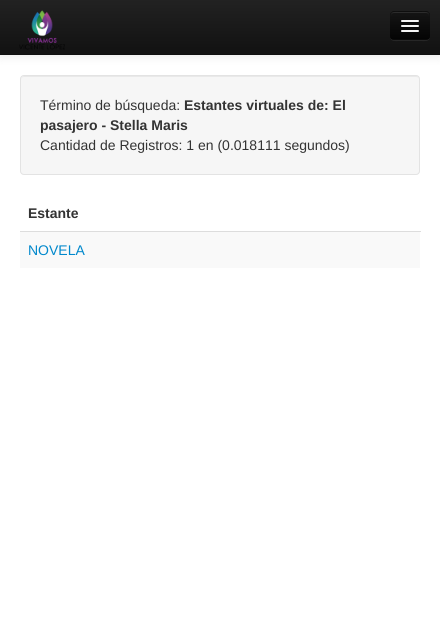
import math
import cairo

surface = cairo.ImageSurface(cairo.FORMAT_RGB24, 440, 624)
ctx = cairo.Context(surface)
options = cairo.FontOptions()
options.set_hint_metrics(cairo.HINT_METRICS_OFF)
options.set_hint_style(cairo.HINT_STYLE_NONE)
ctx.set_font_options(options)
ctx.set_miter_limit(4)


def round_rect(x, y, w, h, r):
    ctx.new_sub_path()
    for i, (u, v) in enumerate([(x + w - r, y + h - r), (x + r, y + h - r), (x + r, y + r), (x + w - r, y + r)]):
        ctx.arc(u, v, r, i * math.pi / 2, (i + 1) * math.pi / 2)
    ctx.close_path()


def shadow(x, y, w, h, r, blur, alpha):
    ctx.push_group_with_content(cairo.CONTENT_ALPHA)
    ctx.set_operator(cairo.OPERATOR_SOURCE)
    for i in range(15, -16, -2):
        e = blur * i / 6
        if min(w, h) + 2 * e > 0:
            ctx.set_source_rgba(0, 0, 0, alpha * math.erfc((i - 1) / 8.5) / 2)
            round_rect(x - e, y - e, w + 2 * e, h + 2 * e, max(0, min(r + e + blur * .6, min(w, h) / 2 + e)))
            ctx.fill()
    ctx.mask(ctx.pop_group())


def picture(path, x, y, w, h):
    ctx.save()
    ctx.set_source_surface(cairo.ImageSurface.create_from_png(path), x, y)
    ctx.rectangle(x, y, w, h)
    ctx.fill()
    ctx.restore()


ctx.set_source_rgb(1, 1, 1)
ctx.paint()
ctx.set_source_rgb(0, 0, 0)
shadow(0, 1, 440, 55, 0, 5, 0.1)
gradient = cairo.LinearGradient(220, 0, 220, 55)
gradient.add_color_stop_rgba(0, 0.133, 0.133, 0.133, 1)
gradient.add_color_stop_rgba(1, 0.067, 0.067, 0.067, 1)
ctx.set_source(gradient)
ctx.rectangle(0, 0, 440, 54)
ctx.fill()
ctx.set_source_rgb(0.059, 0.059, 0.059)
ctx.rectangle(0, 54, 440, 1)
ctx.fill()
picture("img1.png", 19, 10, 46, 40)
ctx.set_source_rgb(0.153, 0.153, 0.153)
ctx.new_path()
ctx.move_to(390, 36)
ctx.curve_to(390, 42, 395, 41, 399, 41)
ctx.line_to(421, 41)
ctx.curve_to(425, 41, 430, 42, 430, 36)
ctx.curve_to(430, 38, 428, 40, 426, 40)
ctx.line_to(394, 40)
ctx.curve_to(392, 40, 390, 38, 390, 36)
ctx.close_path()
ctx.fill()
ctx.set_source_rgb(0.055, 0.055, 0.055)
round_rect(390, 11, 40, 29, 4)
ctx.fill()
ctx.save()
round_rect(390, 11, 40, 29, 4)
ctx.clip()
gradient = cairo.LinearGradient(410, 12, 410, 39)
gradient.add_color_stop_rgba(0, 0.082, 0.082, 0.082, 1)
gradient.add_color_stop_rgba(1, 0.016, 0.016, 0.016, 1)
ctx.set_source(gradient)
ctx.rectangle(390, 12, 40, 27)
ctx.fill()
ctx.restore()
ctx.set_source_rgb(0.173, 0.173, 0.173)
ctx.new_path()
ctx.move_to(394, 13)
ctx.line_to(426, 13)
ctx.curve_to(428, 13, 429, 14, 429, 16)
ctx.curve_to(429, 11, 425, 12, 420.5, 12)
ctx.line_to(399.5, 12)
ctx.curve_to(395, 12, 391, 11, 391, 16)
ctx.curve_to(391, 14, 392, 13, 394, 13)
ctx.close_path()
ctx.fill()
ctx.new_path()
ctx.move_to(428.5, 38.5)
ctx.curve_to(428, 39, 427, 39.5, 426, 39.5)
ctx.line_to(394, 39.5)
ctx.curve_to(393, 39.5, 392, 39, 391.5, 38.5)
ctx.set_source_rgba(0, 0, 0, 0.25)
ctx.set_line_width(1)
ctx.stroke()
ctx.set_source_rgb(0.043, 0.043, 0.043)
ctx.new_path()
ctx.move_to(401, 21.5)
ctx.curve_to(400, 23.5, 404.5, 23, 404.5, 23)
ctx.line_to(415.5, 23)
ctx.curve_to(415.5, 23, 420, 23.5, 419, 21.5)
ctx.curve_to(418, 22.5, 411.5, 22, 410, 22)
ctx.curve_to(408.5, 22, 402, 22.5, 401, 21.5)
ctx.close_path()
ctx.fill()
ctx.set_source_rgb(0.961, 0.961, 0.961)
round_rect(401, 20, 18, 2, 1)
ctx.fill()
ctx.set_source_rgb(0.031, 0.031, 0.031)
ctx.new_path()
ctx.move_to(401, 26.5)
ctx.curve_to(400, 28.5, 404.5, 28, 404.5, 28)
ctx.line_to(415.5, 28)
ctx.curve_to(415.5, 28, 420, 28.5, 419, 26.5)
ctx.curve_to(418, 27.5, 411.5, 27, 410, 27)
ctx.curve_to(408.5, 27, 402, 27.5, 401, 26.5)
ctx.close_path()
ctx.fill()
ctx.set_source_rgb(0.961, 0.961, 0.961)
round_rect(401, 25, 18, 2, 1)
ctx.fill()
round_rect(401, 30, 18, 2, 1)
ctx.fill()
round_rect(20, 75, 400, 100, 4)
ctx.fill()
ctx.set_source_rgb(0.914, 0.914, 0.914)
ctx.new_path()
ctx.move_to(24, 77)
ctx.line_to(416, 77)
ctx.curve_to(418, 77, 419, 78, 419, 80)
ctx.curve_to(419, 78, 418, 76, 416, 76)
ctx.line_to(24, 76)
ctx.line_to(22, 77)
ctx.line_to(21, 80)
ctx.curve_to(21, 78, 22, 77, 24, 77)
ctx.close_path()
ctx.fill()
round_rect(20.5, 75.5, 399, 99, 3.5)
ctx.set_source_rgb(0.89, 0.89, 0.89)
ctx.stroke()
ctx.select_font_face("Liberation Sans")
ctx.set_font_size(14)
ctx.set_source_rgb(0.2, 0.2, 0.2)
ctx.move_to(40, 110)
ctx.show_text("Término de búsqueda:")
ctx.select_font_face("Liberation Sans", cairo.FONT_SLANT_NORMAL, cairo.FONT_WEIGHT_BOLD)
ctx.move_to(184, 110)
ctx.show_text("Estantes virtuales de: El")
ctx.move_to(40, 130)
ctx.show_text("pasajero - Stella Maris")
ctx.select_font_face("Liberation Sans")
ctx.move_to(40, 150)
ctx.show_text("Cantidad de Registros: 1 en (0.018111 segundos)")
ctx.select_font_face("Liberation Sans", cairo.FONT_SLANT_NORMAL, cairo.FONT_WEIGHT_BOLD)
ctx.move_to(28, 218)
ctx.show_text("Estante")
ctx.set_source_rgb(0.976, 0.976, 0.976)
ctx.rectangle(20, 232, 400, 36)
ctx.fill()
ctx.set_source_rgb(0.867, 0.867, 0.867)
ctx.rectangle(20, 231, 401, 1)
ctx.fill()
ctx.select_font_face("Liberation Sans")
ctx.set_source_rgb(0, 0.533, 0.8)
ctx.move_to(28, 255)
ctx.show_text("NOVELA")
surface.write_to_png("page.png")
